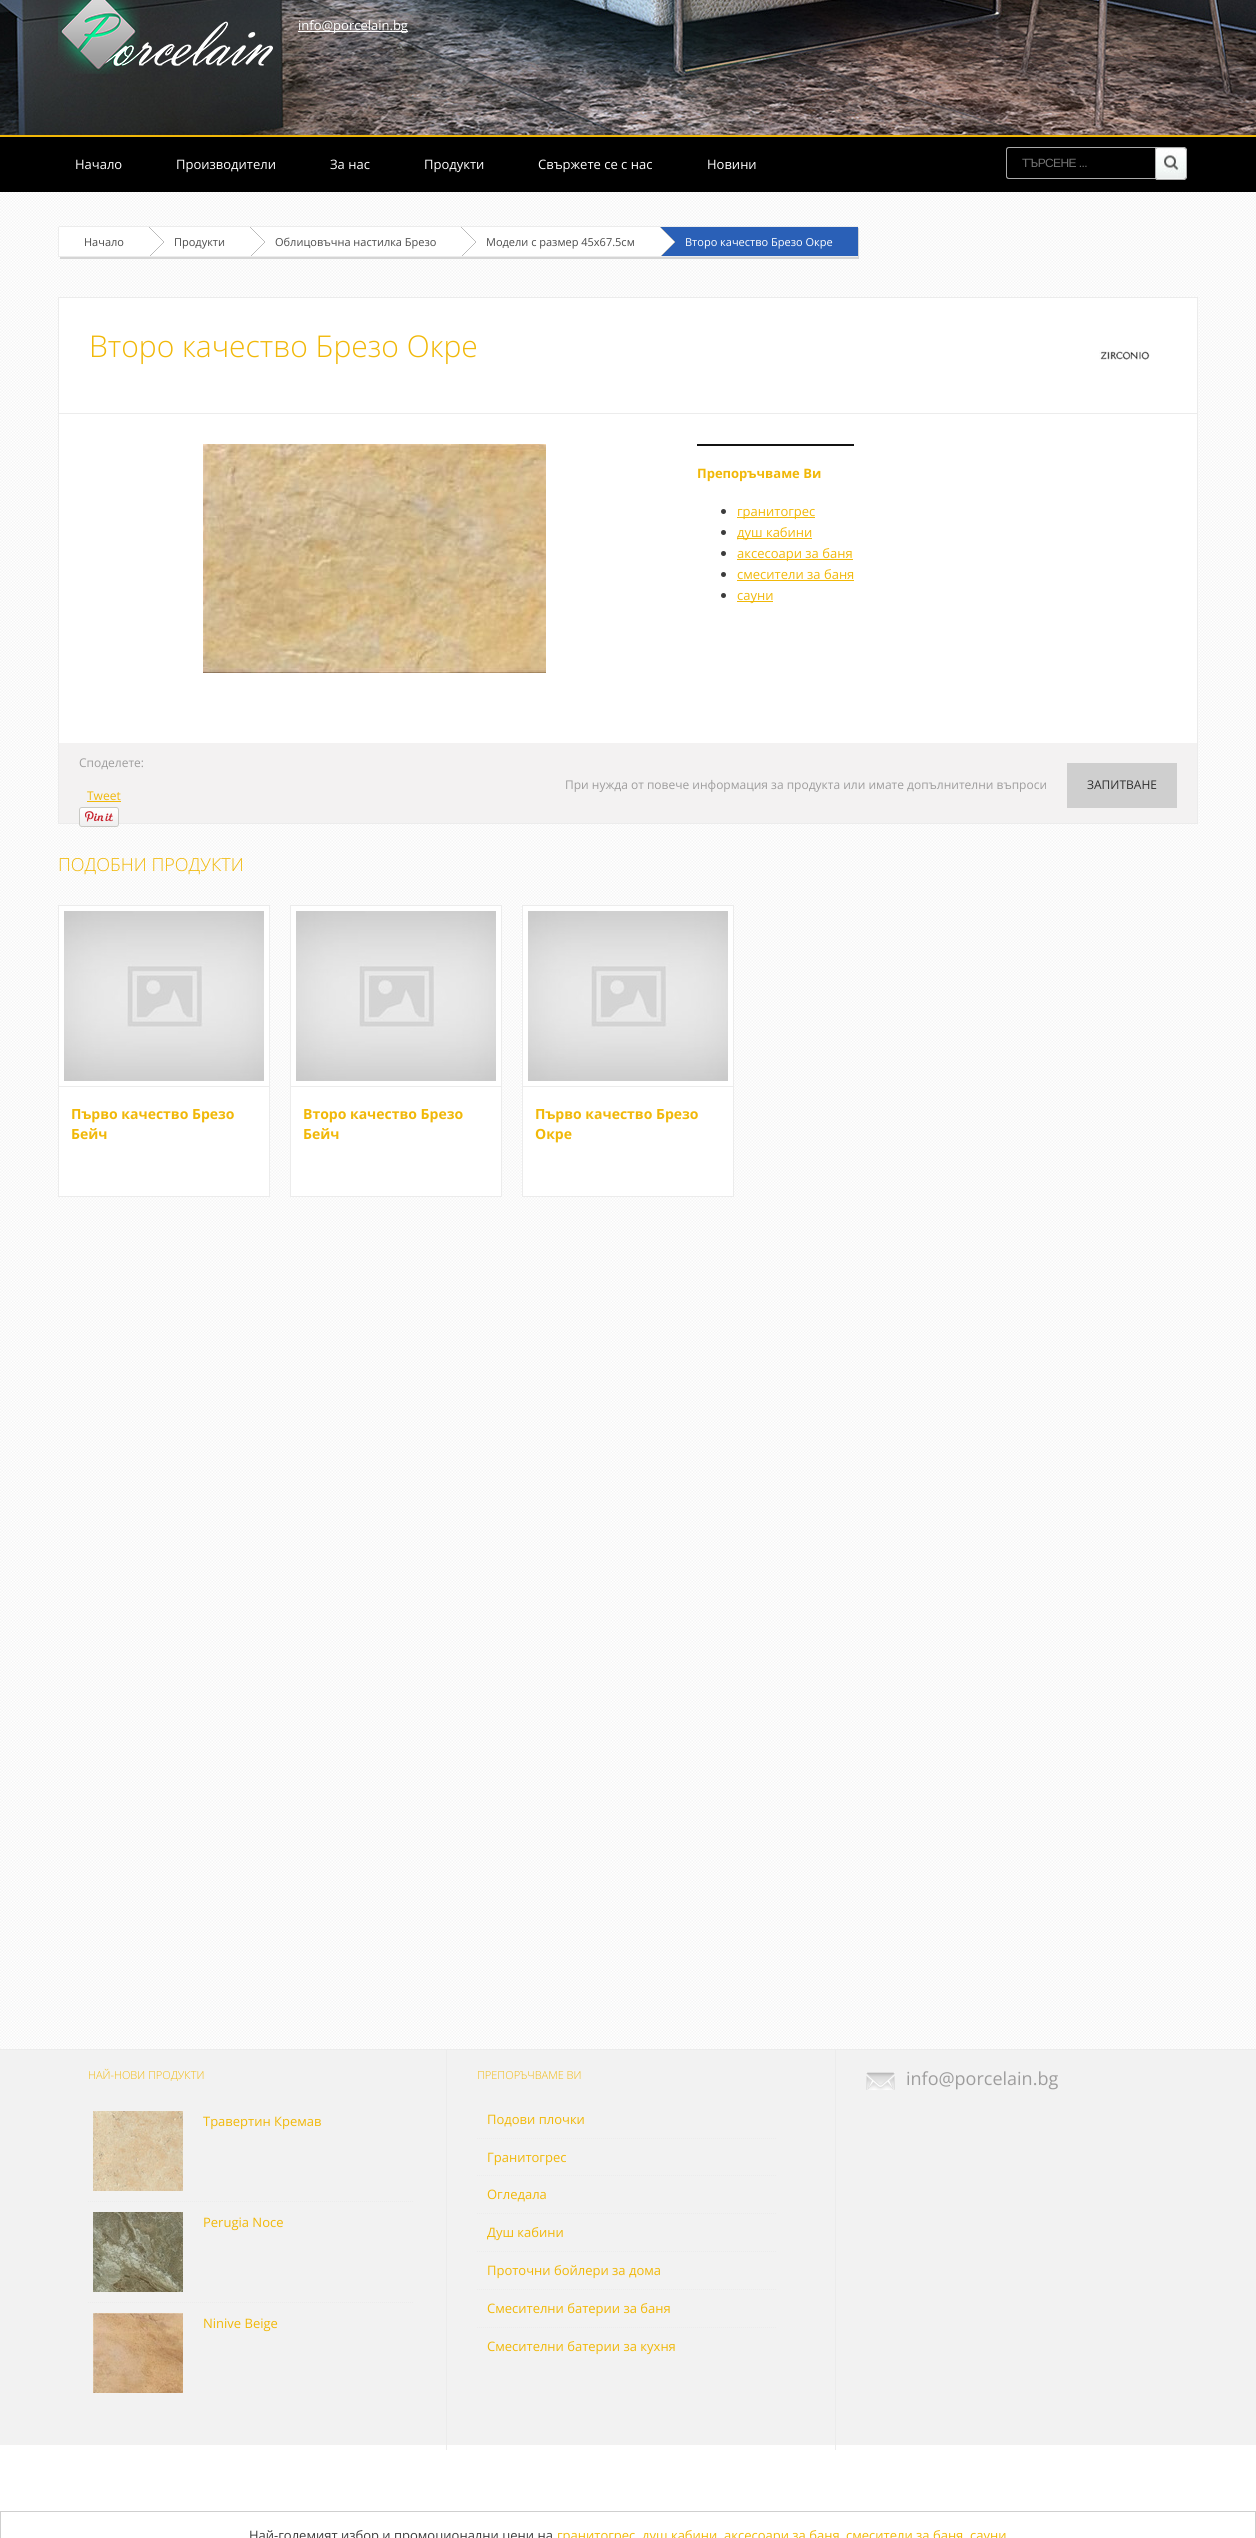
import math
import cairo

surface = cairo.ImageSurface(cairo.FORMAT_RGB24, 1256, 2538)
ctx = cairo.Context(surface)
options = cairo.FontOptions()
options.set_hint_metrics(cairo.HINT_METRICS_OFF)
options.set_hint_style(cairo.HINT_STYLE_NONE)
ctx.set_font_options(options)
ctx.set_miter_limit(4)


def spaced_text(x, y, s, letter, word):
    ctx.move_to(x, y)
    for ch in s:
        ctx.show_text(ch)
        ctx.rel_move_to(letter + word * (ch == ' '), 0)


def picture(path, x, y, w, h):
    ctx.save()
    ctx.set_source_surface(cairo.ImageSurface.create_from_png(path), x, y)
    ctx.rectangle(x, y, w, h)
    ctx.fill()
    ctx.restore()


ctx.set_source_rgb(1, 1, 1)
ctx.paint()
picture("img1.png", 0, 192, 1256, 1857)
picture("img2.png", 0, 0, 1256, 135)
picture("img3.png", 58, 0, 215, 74)
ctx.set_source_rgb(1, 1, 1)
ctx.rectangle(298, 31, 110, 1)
ctx.fill()
ctx.select_font_face("Open Sans")
ctx.set_font_size(13)
ctx.move_to(298, 30)
ctx.show_text("info@porcelain.bg")
ctx.set_source_rgb(0, 0, 0)
ctx.rectangle(0, 137, 1256, 55)
ctx.fill()
ctx.set_source_rgb(0.945, 0.722, 0.039)
ctx.rectangle(0, 135, 1256, 2)
ctx.fill()
ctx.set_source_rgb(1, 1, 1)
ctx.move_to(75, 169)
ctx.show_text("Начало")
ctx.move_to(176, 169)
ctx.show_text("Производители")
ctx.move_to(330, 169)
ctx.show_text("За нас")
ctx.move_to(424, 169)
ctx.show_text("Продукти")
ctx.move_to(538, 169)
ctx.show_text("Свържете се с нас")
ctx.move_to(707, 169)
ctx.show_text("Новини")
ctx.set_source_rgb(0.667, 0.667, 0.667)
ctx.set_fill_rule(cairo.FILL_RULE_EVEN_ODD)
ctx.new_path()
ctx.move_to(1009, 147)
ctx.line_to(1159, 147)
ctx.curve_to(1161, 147, 1162, 148, 1162, 150)
ctx.line_to(1162, 176)
ctx.curve_to(1162, 178, 1161, 179, 1159, 179)
ctx.line_to(1009, 179)
ctx.curve_to(1007, 179, 1006, 178, 1006, 176)
ctx.line_to(1006, 150)
ctx.curve_to(1006, 148, 1007, 147, 1009, 147)
ctx.close_path()
ctx.move_to(1009, 148)
ctx.line_to(1159, 148)
ctx.curve_to(1161, 148, 1162, 149, 1162, 150)
ctx.line_to(1162, 176)
ctx.curve_to(1162, 177, 1161, 178, 1159, 178)
ctx.line_to(1009, 178)
ctx.curve_to(1008, 178, 1007, 177, 1007, 176)
ctx.line_to(1007, 150)
ctx.curve_to(1007, 149, 1008, 148, 1009, 148)
ctx.close_path()
ctx.fill()
ctx.select_font_face("Liberation Sans")
ctx.set_font_size(12)
ctx.set_source_rgb(0.459, 0.459, 0.459)
spaced_text(1022, 167, "ТЪРСЕНЕ ...", -0.6, 0)
picture("img4.png", 1155, 147, 32, 33)
ctx.new_path()
ctx.move_to(1158, 147.5)
ctx.line_to(1183, 147.5)
ctx.curve_to(1185, 147.5, 1186.5, 149, 1186.5, 151)
ctx.line_to(1186.5, 176)
ctx.curve_to(1186.5, 178, 1185, 179.5, 1183, 179.5)
ctx.line_to(1158, 179.5)
ctx.curve_to(1156.5, 179.5, 1155.5, 178.5, 1155.5, 177)
ctx.line_to(1155.5, 150)
ctx.curve_to(1155.5, 148.5, 1156.5, 147.5, 1158, 147.5)
ctx.close_path()
ctx.set_source_rgb(0.667, 0.667, 0.667)
ctx.set_line_width(1)
ctx.stroke()
ctx.set_source_rgb(0.922, 0.922, 0.922)
ctx.rectangle(58, 227, 1, 30)
ctx.fill()
ctx.set_source_rgb(0.835, 0.835, 0.835)
ctx.set_fill_rule(cairo.FILL_RULE_WINDING)
ctx.new_path()
ctx.move_to(60, 257)
ctx.line_to(60, 259)
ctx.line_to(150, 259)
ctx.line_to(150, 228)
ctx.line_to(149, 228)
ctx.line_to(149, 257)
ctx.close_path()
ctx.fill()
ctx.set_source_rgb(1, 1, 1)
ctx.rectangle(59, 227, 90, 29)
ctx.fill()
ctx.select_font_face("Open Sans")
ctx.set_font_size(11)
ctx.set_source_rgb(0.298, 0.298, 0.298)
ctx.move_to(84, 246)
ctx.show_text("Начало")
ctx.set_source_rgb(0.922, 0.922, 0.922)
ctx.rectangle(59, 226, 799, 1)
ctx.fill()
ctx.rectangle(59, 256, 90, 1)
ctx.fill()
ctx.set_source_rgb(0.835, 0.835, 0.835)
ctx.new_path()
ctx.move_to(150, 257)
ctx.line_to(150, 259)
ctx.line_to(251, 259)
ctx.line_to(251, 228)
ctx.line_to(250, 228)
ctx.line_to(250, 257)
ctx.close_path()
ctx.fill()
ctx.set_source_rgb(1, 1, 1)
ctx.rectangle(150, 227, 100, 29)
ctx.fill()
picture("img5.png", 149, 227, 15, 29)
ctx.set_source_rgb(0.298, 0.298, 0.298)
ctx.move_to(174, 246)
ctx.show_text("Продукти")
ctx.set_source_rgb(0.922, 0.922, 0.922)
ctx.rectangle(149, 256, 101, 1)
ctx.fill()
ctx.set_source_rgb(0.835, 0.835, 0.835)
ctx.new_path()
ctx.move_to(251, 257)
ctx.line_to(251, 259)
ctx.line_to(462, 259)
ctx.line_to(462, 228)
ctx.line_to(461, 228)
ctx.line_to(461, 257)
ctx.close_path()
ctx.fill()
ctx.set_source_rgb(1, 1, 1)
ctx.rectangle(251, 227, 210, 29)
ctx.fill()
picture("img5.png", 250, 227, 15, 29)
ctx.set_source_rgb(0.298, 0.298, 0.298)
ctx.move_to(275, 246)
ctx.show_text("Облицовъчна настилка Брезо")
ctx.set_source_rgb(0.922, 0.922, 0.922)
ctx.rectangle(250, 256, 211, 1)
ctx.fill()
ctx.set_source_rgb(0.835, 0.835, 0.835)
ctx.new_path()
ctx.move_to(462, 257)
ctx.line_to(462, 259)
ctx.line_to(661, 259)
ctx.line_to(661, 228)
ctx.line_to(660, 228)
ctx.line_to(660, 257)
ctx.close_path()
ctx.fill()
ctx.set_source_rgb(1, 1, 1)
ctx.rectangle(462, 227, 198, 29)
ctx.fill()
picture("img5.png", 461, 227, 15, 29)
ctx.set_source_rgb(0.298, 0.298, 0.298)
ctx.move_to(486, 246)
ctx.show_text("Модели с размер 45x67.5см")
ctx.set_source_rgb(0.922, 0.922, 0.922)
ctx.rectangle(461, 256, 199, 1)
ctx.fill()
ctx.set_source_rgb(0.835, 0.835, 0.835)
ctx.new_path()
ctx.move_to(661, 257)
ctx.line_to(661, 259)
ctx.line_to(859, 259)
ctx.line_to(859, 228)
ctx.line_to(858, 228)
ctx.line_to(858, 257)
ctx.close_path()
ctx.fill()
ctx.set_source_rgb(0.165, 0.376, 0.718)
ctx.rectangle(661, 227, 197, 29)
ctx.fill()
picture("img6.png", 660, 227, 15, 29)
ctx.set_source_rgb(1, 1, 1)
ctx.move_to(685, 246)
ctx.show_text("Второ качество Брезо Окре")
ctx.set_source_rgb(0.922, 0.922, 0.922)
ctx.rectangle(660, 256, 198, 1)
ctx.fill()
ctx.set_source_rgb(1, 1, 1)
ctx.rectangle(59, 298, 1138, 445)
ctx.fill()
ctx.rectangle(58.5, 297.5, 1139, 526)
ctx.set_source_rgb(0.922, 0.922, 0.922)
ctx.stroke()
ctx.rectangle(59, 413, 1138, 1)
ctx.fill()
ctx.select_font_face("Open Sans Light")
ctx.set_font_size(30)
ctx.set_source_rgb(0.945, 0.722, 0.039)
ctx.move_to(89, 357)
ctx.show_text("Второ качество Брезо Окре")
picture("img7.png", 1099, 350, 51, 10)
picture("img8.png", 203, 444, 343, 229)
ctx.set_source_rgb(0.075, 0.075, 0.075)
ctx.rectangle(697, 444, 157, 2)
ctx.fill()
ctx.select_font_face("Open Sans", cairo.FONT_SLANT_NORMAL, cairo.FONT_WEIGHT_BOLD)
ctx.set_font_size(13)
ctx.set_source_rgb(0.945, 0.722, 0.039)
ctx.move_to(697, 478)
ctx.show_text("Препоръчваме Ви")
ctx.set_source_rgb(0.235, 0.235, 0.235)
ctx.new_path()
ctx.arc(723.5, 511.5, 2.5, 0, 2 * math.pi)
ctx.fill()
ctx.set_source_rgb(0.945, 0.722, 0.039)
ctx.rectangle(737, 517, 78, 1)
ctx.fill()
ctx.select_font_face("Open Sans")
ctx.move_to(737, 516)
ctx.show_text("гранитогрес")
ctx.set_source_rgb(0.235, 0.235, 0.235)
ctx.new_path()
ctx.arc(723.5, 532.5, 2.5, 0, 2 * math.pi)
ctx.fill()
ctx.set_source_rgb(0.945, 0.722, 0.039)
ctx.rectangle(737, 538, 75, 1)
ctx.fill()
ctx.move_to(737, 537)
ctx.show_text("душ кабини")
ctx.set_source_rgb(0.235, 0.235, 0.235)
ctx.new_path()
ctx.arc(723.5, 553.5, 2.5, 0, 2 * math.pi)
ctx.fill()
ctx.set_source_rgb(0.945, 0.722, 0.039)
ctx.rectangle(737, 559, 116, 1)
ctx.fill()
ctx.move_to(737, 558)
ctx.show_text("аксесоари за баня")
ctx.set_source_rgb(0.235, 0.235, 0.235)
ctx.new_path()
ctx.arc(723.5, 574.5, 2.5, 0, 2 * math.pi)
ctx.fill()
ctx.set_source_rgb(0.945, 0.722, 0.039)
ctx.move_to(737, 579)
ctx.show_text("смесители за баня")
ctx.rectangle(737, 580, 117, 1)
ctx.fill()
ctx.set_source_rgb(0.235, 0.235, 0.235)
ctx.arc(723.5, 595.5, 2.5, 0, 2 * math.pi)
ctx.fill()
ctx.set_source_rgb(0.945, 0.722, 0.039)
ctx.rectangle(737, 601, 36, 1)
ctx.fill()
ctx.move_to(737, 600)
ctx.show_text("сауни")
ctx.set_source_rgb(0.953, 0.949, 0.949)
ctx.rectangle(59, 743, 1138, 80)
ctx.fill()
ctx.set_font_size(12)
ctx.set_source_rgb(0.62, 0.616, 0.616)
ctx.move_to(79, 767)
ctx.show_text("Споделете:")
ctx.set_source_rgb(0.945, 0.722, 0.039)
ctx.move_to(87, 800)
ctx.show_text("Tweet")
ctx.rectangle(87, 801, 34, 1)
ctx.fill()
picture("img9.png", 79, 807, 40, 20)
ctx.set_source_rgb(0.62, 0.616, 0.616)
ctx.move_to(565, 789)
ctx.show_text("При нужда от повече информация за продукта или имате допълнителни въпроси")
ctx.set_source_rgb(0.812, 0.812, 0.812)
ctx.rectangle(1067, 763, 110, 45)
ctx.fill()
ctx.set_source_rgb(0.184, 0.184, 0.184)
ctx.move_to(1087, 789)
ctx.show_text("ЗАПИТВАНЕ")
ctx.select_font_face("Open Sans Light")
ctx.set_font_size(18)
ctx.set_source_rgb(0.945, 0.722, 0.039)
ctx.move_to(58, 871)
ctx.show_text("ПОДОБНИ ПРОДУКТИ")
ctx.set_source_rgb(1, 1, 1)
ctx.rectangle(58.5, 905.5, 211, 291)
ctx.fill_preserve()
ctx.set_source_rgb(0.922, 0.922, 0.922)
ctx.stroke()
picture("img10.png", 64, 911, 200, 170)
ctx.rectangle(59, 1086, 210, 1)
ctx.fill()
ctx.select_font_face("Open Sans", cairo.FONT_SLANT_NORMAL, cairo.FONT_WEIGHT_BOLD)
ctx.set_font_size(14)
ctx.set_source_rgb(0.945, 0.722, 0.039)
ctx.move_to(71, 1119)
ctx.show_text("Първо качество Брезо")
ctx.move_to(71, 1139)
ctx.show_text("Бейч")
ctx.set_source_rgb(1, 1, 1)
ctx.rectangle(290.5, 905.5, 211, 291)
ctx.fill_preserve()
ctx.set_source_rgb(0.922, 0.922, 0.922)
ctx.stroke()
picture("img10.png", 296, 911, 200, 170)
ctx.rectangle(291, 1086, 210, 1)
ctx.fill()
ctx.set_source_rgb(0.945, 0.722, 0.039)
ctx.move_to(303, 1119)
ctx.show_text("Второ качество Брезо")
ctx.move_to(303, 1139)
ctx.show_text("Бейч")
ctx.set_source_rgb(1, 1, 1)
ctx.rectangle(522.5, 905.5, 211, 291)
ctx.fill_preserve()
ctx.set_source_rgb(0.922, 0.922, 0.922)
ctx.stroke()
picture("img10.png", 528, 911, 200, 170)
ctx.rectangle(523, 1086, 210, 1)
ctx.fill()
ctx.set_source_rgb(0.945, 0.722, 0.039)
ctx.move_to(535, 1119)
ctx.show_text("Първо качество Брезо")
ctx.move_to(535, 1139)
ctx.show_text("Окре")
ctx.set_source_rgb(0.949, 0.949, 0.949)
ctx.rectangle(0, 2050, 1256, 395)
ctx.fill()
ctx.set_source_rgb(0.922, 0.922, 0.922)
ctx.rectangle(0, 2049, 1256, 1)
ctx.fill()
ctx.select_font_face("Open Sans Light")
ctx.set_font_size(11)
ctx.set_source_rgb(0.945, 0.722, 0.039)
ctx.move_to(88, 2079)
ctx.show_text("НАЙ-НОВИ ПРОДУКТИ")
ctx.new_path()
ctx.move_to(88, 2201.5)
ctx.line_to(413, 2201.5)
ctx.set_source_rgb(0.922, 0.922, 0.922)
ctx.set_dash([1, 1])
ctx.stroke()
picture("img11.png", 93, 2111, 90, 80)
ctx.select_font_face("Open Sans")
ctx.set_font_size(13)
ctx.set_source_rgb(0.945, 0.722, 0.039)
ctx.move_to(203, 2126)
ctx.show_text("Травертин Кремав")
ctx.new_path()
ctx.move_to(88, 2302.5)
ctx.line_to(413, 2302.5)
ctx.set_source_rgb(0.922, 0.922, 0.922)
ctx.stroke()
picture("img12.png", 93, 2212, 90, 80)
ctx.set_source_rgb(0.945, 0.722, 0.039)
ctx.move_to(203, 2227)
ctx.show_text("Perugia Noce")
picture("img13.png", 93, 2313, 90, 80)
ctx.move_to(203, 2328)
ctx.show_text("Ninive Beige")
ctx.set_source_rgb(0.922, 0.922, 0.922)
ctx.rectangle(835, 2049, 1, 401)
ctx.fill()
ctx.rectangle(446, 2049, 1, 401)
ctx.fill()
ctx.select_font_face("Open Sans Light")
ctx.set_font_size(11)
ctx.set_source_rgb(0.945, 0.722, 0.039)
ctx.move_to(477, 2079)
ctx.show_text("ПРЕПОРЪЧВАМЕ ВИ")
ctx.new_path()
ctx.move_to(477, 2138.5)
ctx.line_to(777, 2138.5)
ctx.set_source_rgb(0.922, 0.922, 0.922)
ctx.stroke()
ctx.select_font_face("Open Sans")
ctx.set_font_size(13)
ctx.set_source_rgb(0.945, 0.722, 0.039)
ctx.move_to(487, 2124)
ctx.show_text("Подови плочки")
ctx.new_path()
ctx.move_to(477, 2175.5)
ctx.line_to(777, 2175.5)
ctx.set_source_rgb(0.922, 0.922, 0.922)
ctx.stroke()
ctx.set_source_rgb(0.945, 0.722, 0.039)
ctx.move_to(487, 2162)
ctx.show_text("Гранитогрес")
ctx.new_path()
ctx.move_to(477, 2213.5)
ctx.line_to(777, 2213.5)
ctx.set_source_rgb(0.922, 0.922, 0.922)
ctx.stroke()
ctx.set_source_rgb(0.945, 0.722, 0.039)
ctx.move_to(487, 2199)
ctx.show_text("Огледала")
ctx.new_path()
ctx.move_to(477, 2251.5)
ctx.line_to(777, 2251.5)
ctx.set_source_rgb(0.922, 0.922, 0.922)
ctx.stroke()
ctx.set_source_rgb(0.945, 0.722, 0.039)
ctx.move_to(487, 2237)
ctx.show_text("Душ кабини")
ctx.new_path()
ctx.move_to(477, 2289.5)
ctx.line_to(777, 2289.5)
ctx.set_source_rgb(0.922, 0.922, 0.922)
ctx.stroke()
ctx.set_source_rgb(0.945, 0.722, 0.039)
ctx.move_to(487, 2275)
ctx.show_text("Проточни бойлери за дома")
ctx.new_path()
ctx.move_to(477, 2327.5)
ctx.line_to(777, 2327.5)
ctx.set_source_rgb(0.922, 0.922, 0.922)
ctx.stroke()
ctx.set_source_rgb(0.945, 0.722, 0.039)
ctx.move_to(487, 2313)
ctx.show_text("Смесителни батерии за баня")
ctx.move_to(487, 2351)
ctx.show_text("Смесителни батерии за кухня")
picture("img14.png", 866, 2072, 29, 18)
ctx.set_font_size(18)
ctx.set_source_rgb(0.62, 0.616, 0.616)
ctx.move_to(906, 2085)
ctx.show_text("info@porcelain.bg")
ctx.rectangle(0.5, 2511.5, 1255, 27)
ctx.set_source_rgb(0.812, 0.812, 0.812)
ctx.set_dash([])
ctx.stroke()
ctx.set_font_size(13)
ctx.set_source_rgb(0.235, 0.235, 0.235)
ctx.move_to(249, 2540)
ctx.show_text("Най-големият избор и промоционални цени на")
ctx.set_source_rgb(0.945, 0.722, 0.039)
ctx.move_to(557, 2540)
ctx.show_text("гранитогрес")
ctx.move_to(642, 2540)
ctx.show_text("душ кабини")
ctx.move_to(724, 2540)
ctx.show_text("аксесоари за баня")
ctx.move_to(846, 2540)
ctx.show_text("смесители за баня")
ctx.move_to(970, 2540)
ctx.show_text("сауни")
surface.write_to_png("page.png")
